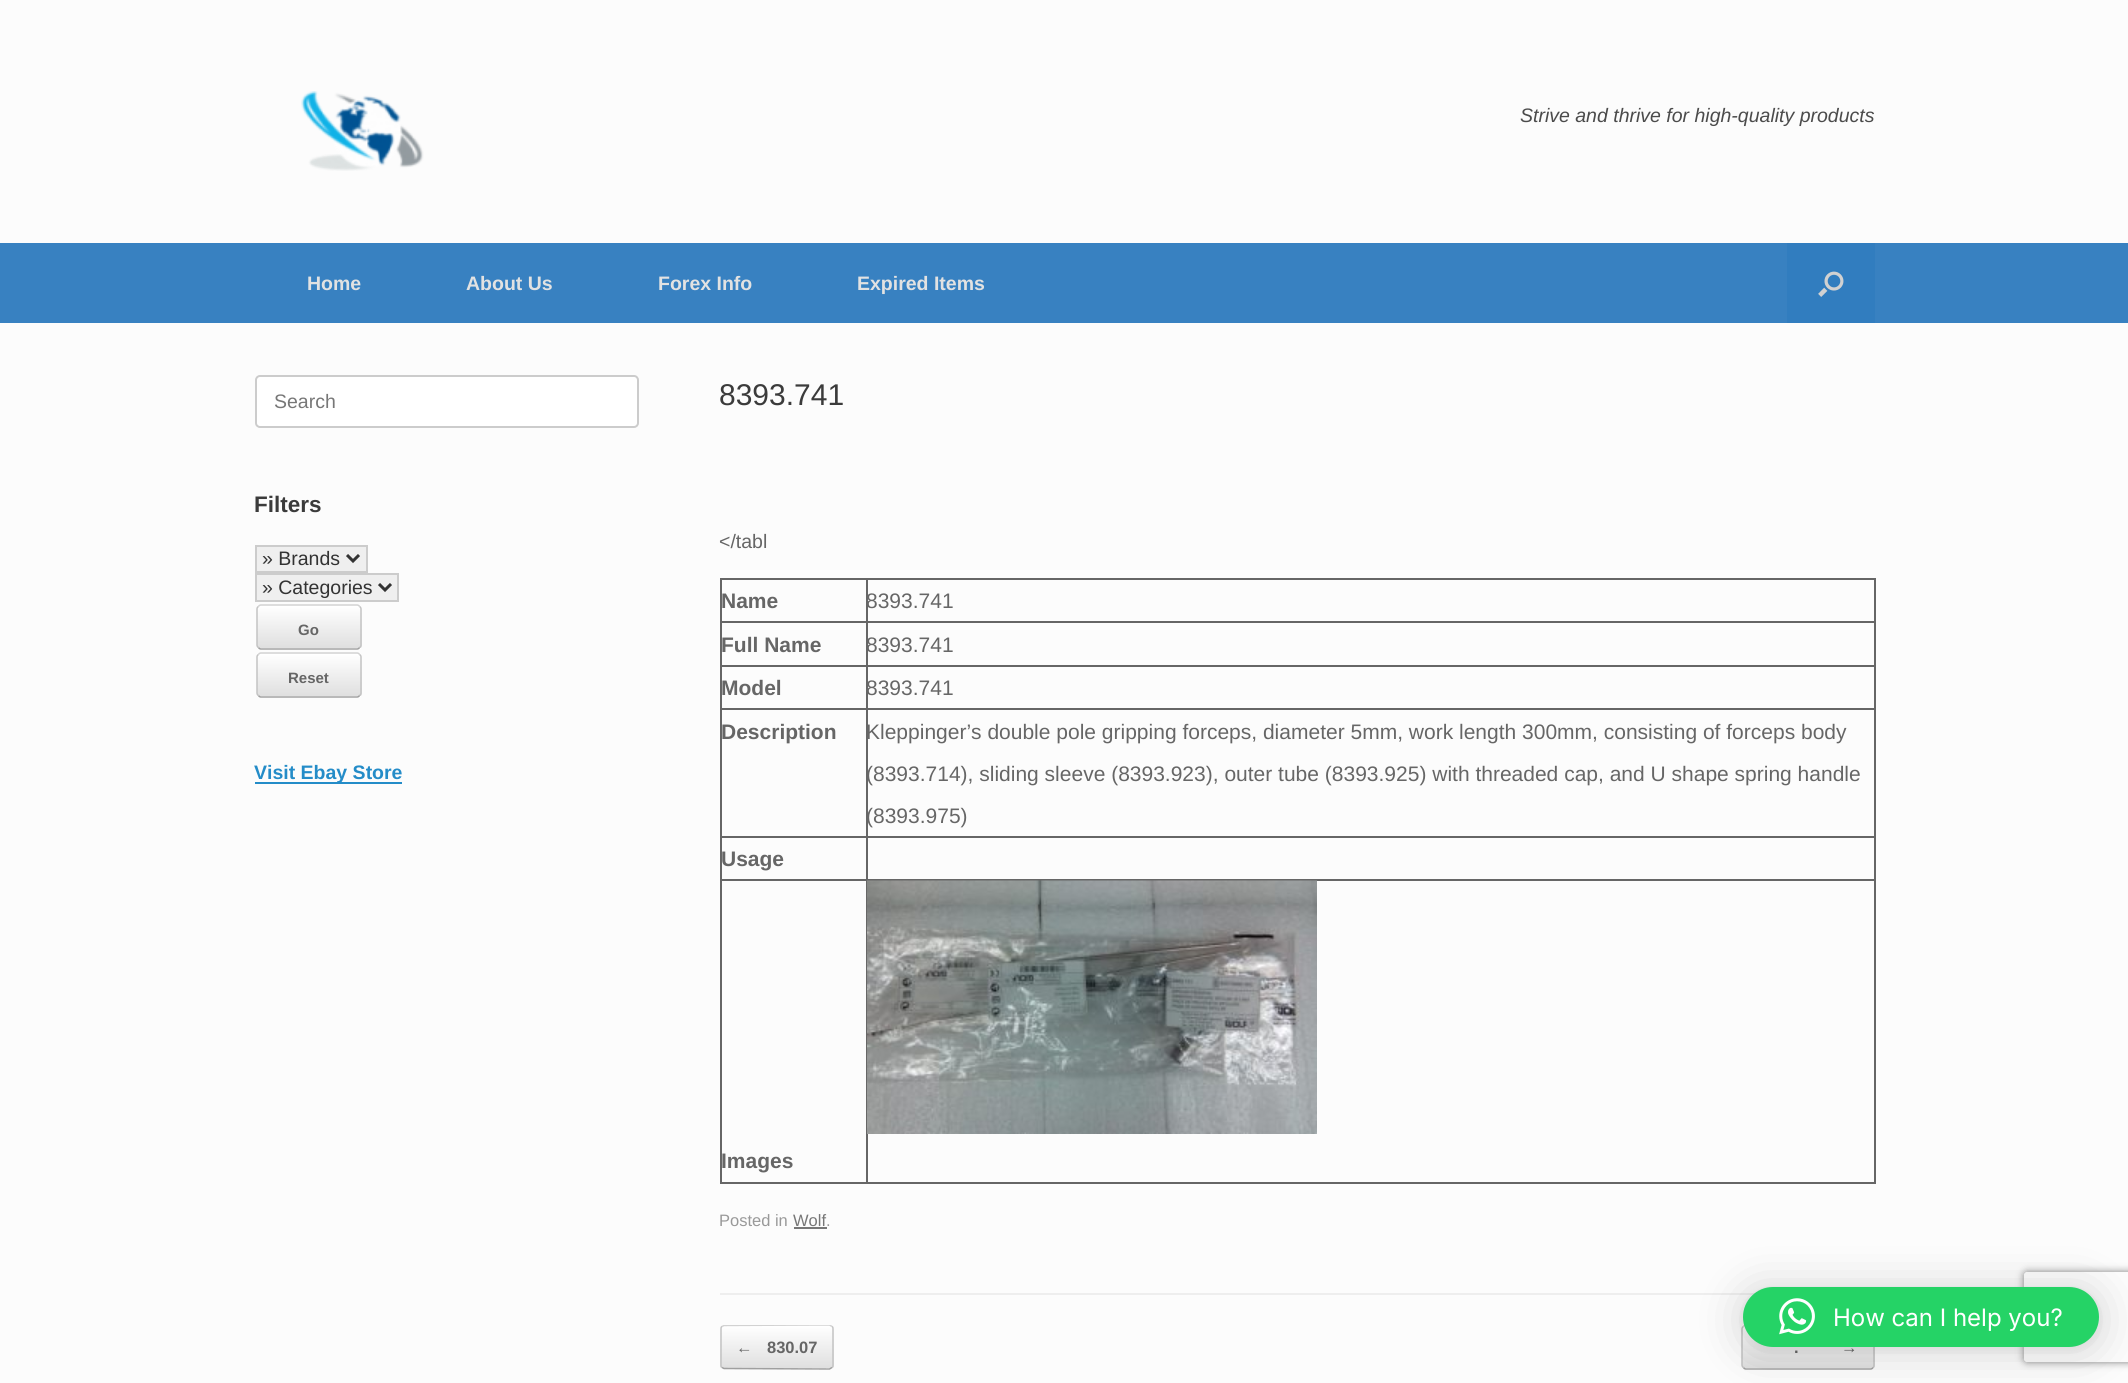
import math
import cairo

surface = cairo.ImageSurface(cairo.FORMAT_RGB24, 2128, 1383)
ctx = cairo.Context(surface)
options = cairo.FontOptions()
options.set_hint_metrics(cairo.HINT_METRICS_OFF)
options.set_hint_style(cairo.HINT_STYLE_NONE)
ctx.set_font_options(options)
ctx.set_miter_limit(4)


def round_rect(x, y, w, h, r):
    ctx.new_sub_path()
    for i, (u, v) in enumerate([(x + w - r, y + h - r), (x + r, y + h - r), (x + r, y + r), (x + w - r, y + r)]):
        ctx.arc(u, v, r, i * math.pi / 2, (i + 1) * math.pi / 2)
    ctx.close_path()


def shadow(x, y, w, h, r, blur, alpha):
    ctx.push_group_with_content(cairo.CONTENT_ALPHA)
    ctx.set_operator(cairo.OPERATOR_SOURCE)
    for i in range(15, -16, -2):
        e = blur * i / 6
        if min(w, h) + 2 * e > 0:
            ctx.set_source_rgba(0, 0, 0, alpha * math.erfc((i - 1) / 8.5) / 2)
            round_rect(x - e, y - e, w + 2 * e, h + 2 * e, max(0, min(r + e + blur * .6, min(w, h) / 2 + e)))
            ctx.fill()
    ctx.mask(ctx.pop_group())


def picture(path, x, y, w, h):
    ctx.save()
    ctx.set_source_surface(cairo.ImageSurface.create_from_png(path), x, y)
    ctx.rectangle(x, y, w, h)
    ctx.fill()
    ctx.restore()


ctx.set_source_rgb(0.988, 0.988, 0.988)
ctx.paint()
picture("img1.png", 301, 91, 123, 80)
ctx.select_font_face("Liberation Sans", cairo.FONT_SLANT_ITALIC)
ctx.set_font_size(19.5)
ctx.set_source_rgb(0.294, 0.294, 0.294)
ctx.move_to(1520, 122)
ctx.show_text("Strive and thrive for high-quality products")
ctx.set_source_rgb(0.22, 0.506, 0.757)
ctx.rectangle(0, 243, 2128, 80)
ctx.fill()
ctx.select_font_face("Liberation Sans", cairo.FONT_SLANT_NORMAL, cairo.FONT_WEIGHT_BOLD)
ctx.set_source_rgb(0.886, 0.886, 0.886)
ctx.move_to(307, 290)
ctx.show_text("Home")
ctx.move_to(466, 290)
ctx.show_text("About Us")
ctx.move_to(658, 290)
ctx.show_text("Forex Info")
ctx.move_to(857, 290)
ctx.show_text("Expired Items")
ctx.set_source_rgb(0.192, 0.49, 0.749)
ctx.rectangle(1787, 243, 88, 80)
ctx.fill()
picture("img2.png", 1818, 271, 26, 26)
ctx.set_source_rgb(1, 1, 1)
round_rect(256, 376, 382, 51, 4)
ctx.fill_preserve()
ctx.set_source_rgb(0.8, 0.8, 0.8)
ctx.stroke()
ctx.select_font_face("Liberation Sans")
ctx.set_source_rgb(0.467, 0.467, 0.467)
ctx.move_to(274, 408)
ctx.show_text("Search")
ctx.select_font_face("Liberation Sans", cairo.FONT_SLANT_NORMAL, cairo.FONT_WEIGHT_BOLD)
ctx.set_font_size(22.5)
ctx.set_source_rgb(0.231, 0.231, 0.231)
ctx.move_to(254, 512)
ctx.show_text("Filters")
ctx.set_source_rgb(0.937, 0.937, 0.937)
ctx.rectangle(256, 546, 111, 26)
ctx.fill_preserve()
ctx.set_source_rgb(0.8, 0.8, 0.8)
ctx.stroke()
ctx.new_path()
ctx.move_to(347, 555)
ctx.line_to(353, 561)
ctx.line_to(359, 555)
ctx.set_source_rgb(0.2, 0.2, 0.2)
ctx.set_line_width(3)
ctx.stroke()
ctx.select_font_face("Liberation Sans")
ctx.set_font_size(19.5)
ctx.move_to(262, 565)
ctx.show_text("» Brands")
ctx.set_source_rgb(0.937, 0.937, 0.937)
ctx.rectangle(256, 574, 142, 27)
ctx.fill_preserve()
ctx.set_source_rgb(0.8, 0.8, 0.8)
ctx.set_line_width(2)
ctx.stroke()
ctx.new_path()
ctx.move_to(379, 584)
ctx.line_to(385, 590)
ctx.line_to(391, 584)
ctx.set_source_rgb(0.2, 0.2, 0.2)
ctx.set_line_width(3)
ctx.stroke()
ctx.move_to(262, 594)
ctx.show_text("» Categories")
ctx.save()
round_rect(257, 605, 105, 45, 5)
ctx.clip()
gradient = cairo.LinearGradient(258, 648, 258, 606)
gradient.add_color_stop_rgba(0, 0.875, 0.875, 0.875, 1)
gradient.add_color_stop_rgba(1, 1, 1, 1, 1)
ctx.set_source(gradient)
ctx.rectangle(257, 606, 105, 42)
ctx.fill()
gradient = cairo.LinearGradient(258, 690, 258, 648)
gradient.add_color_stop_rgba(0, 0.875, 0.875, 0.875, 1)
gradient.add_color_stop_rgba(1, 1, 1, 1, 1)
ctx.set_source(gradient)
ctx.rectangle(257, 648, 105, 2)
ctx.fill()
ctx.restore()
ctx.new_path()
ctx.move_to(258.5, 606.5)
ctx.curve_to(259, 605.5, 260, 605, 261, 605)
ctx.line_to(357, 605)
ctx.curve_to(358, 605, 359, 605.5, 359.5, 606.5)
ctx.set_source_rgb(0.824, 0.824, 0.824)
ctx.set_line_width(1.5)
ctx.stroke()
ctx.new_path()
ctx.move_to(359.5, 606.5)
ctx.curve_to(360.5, 607, 361, 608, 361, 609)
ctx.line_to(361, 645)
ctx.curve_to(361, 646, 360.5, 647, 359.5, 647.5)
ctx.set_source_rgb(0.765, 0.765, 0.765)
ctx.stroke()
ctx.new_path()
ctx.move_to(359.5, 647.5)
ctx.curve_to(359, 648.5, 358, 649, 357, 649)
ctx.line_to(261, 649)
ctx.curve_to(260, 649, 259, 648.5, 258.5, 647.5)
ctx.set_source_rgb(0.624, 0.624, 0.624)
ctx.stroke()
ctx.new_path()
ctx.move_to(258.5, 647.5)
ctx.curve_to(257.5, 647, 257, 646, 257, 645)
ctx.line_to(257, 609)
ctx.curve_to(257, 608, 257.5, 607, 258.5, 606.5)
ctx.set_source_rgb(0.765, 0.765, 0.765)
ctx.stroke()
ctx.select_font_face("Liberation Sans", cairo.FONT_SLANT_NORMAL, cairo.FONT_WEIGHT_BOLD)
ctx.set_font_size(15)
ctx.set_source_rgb(0.4, 0.4, 0.4)
ctx.move_to(298, 635)
ctx.show_text("Go")
ctx.save()
round_rect(257, 653, 105, 45, 5)
ctx.clip()
gradient = cairo.LinearGradient(258, 696, 258, 654)
gradient.add_color_stop_rgba(0, 0.875, 0.875, 0.875, 1)
gradient.add_color_stop_rgba(1, 1, 1, 1, 1)
ctx.set_source(gradient)
ctx.rectangle(257, 654, 105, 42)
ctx.fill()
gradient = cairo.LinearGradient(258, 738, 258, 696)
gradient.add_color_stop_rgba(0, 0.875, 0.875, 0.875, 1)
gradient.add_color_stop_rgba(1, 1, 1, 1, 1)
ctx.set_source(gradient)
ctx.rectangle(257, 696, 105, 2)
ctx.fill()
ctx.restore()
ctx.new_path()
ctx.move_to(258.5, 654.5)
ctx.curve_to(259, 653.5, 260, 653, 261, 653)
ctx.line_to(357, 653)
ctx.curve_to(358, 653, 359, 653.5, 359.5, 654.5)
ctx.set_source_rgb(0.824, 0.824, 0.824)
ctx.stroke()
ctx.new_path()
ctx.move_to(359.5, 654.5)
ctx.curve_to(360.5, 655, 361, 656, 361, 657)
ctx.line_to(361, 693)
ctx.curve_to(361, 694, 360.5, 695, 359.5, 695.5)
ctx.set_source_rgb(0.765, 0.765, 0.765)
ctx.stroke()
ctx.new_path()
ctx.move_to(359.5, 695.5)
ctx.curve_to(359, 696.5, 358, 697, 357, 697)
ctx.line_to(261, 697)
ctx.curve_to(260, 697, 259, 696.5, 258.5, 695.5)
ctx.set_source_rgb(0.624, 0.624, 0.624)
ctx.stroke()
ctx.new_path()
ctx.move_to(258.5, 695.5)
ctx.curve_to(257.5, 695, 257, 694, 257, 693)
ctx.line_to(257, 657)
ctx.curve_to(257, 656, 257.5, 655, 258.5, 654.5)
ctx.set_source_rgb(0.765, 0.765, 0.765)
ctx.stroke()
ctx.set_source_rgb(0.4, 0.4, 0.4)
ctx.move_to(288, 683)
ctx.show_text("Reset")
ctx.set_source_rgb(0.141, 0.549, 0.784)
ctx.rectangle(255, 782, 147, 2)
ctx.fill()
ctx.set_font_size(19.5)
ctx.move_to(254, 779)
ctx.show_text("Visit Ebay Store")
ctx.set_source_rgb(0.933, 0.933, 0.933)
ctx.rectangle(720, 1293, 1035, 2)
ctx.fill()
ctx.select_font_face("Liberation Sans")
ctx.set_font_size(30)
ctx.set_source_rgb(0.231, 0.231, 0.231)
ctx.move_to(719, 405)
ctx.show_text("8393.741")
ctx.set_font_size(19.5)
ctx.set_source_rgb(0.4, 0.4, 0.4)
ctx.move_to(719, 548)
ctx.show_text("</tabl")
ctx.rectangle(866, 578, 1009, 2)
ctx.fill()
ctx.rectangle(866, 621, 1009, 2)
ctx.fill()
ctx.rectangle(866, 665, 1009, 2)
ctx.fill()
ctx.rectangle(866, 708, 1009, 2)
ctx.fill()
ctx.rectangle(866, 836, 1009, 2)
ctx.fill()
ctx.rectangle(866, 879, 1009, 2)
ctx.fill()
ctx.rectangle(1874, 879, 2, 305)
ctx.fill()
ctx.rectangle(866, 1182, 1009, 2)
ctx.fill()
ctx.rectangle(866, 879, 2, 305)
ctx.fill()
ctx.rectangle(720, 879, 147, 2)
ctx.fill()
ctx.rectangle(866, 836, 2, 45)
ctx.fill()
ctx.rectangle(720, 836, 147, 2)
ctx.fill()
ctx.rectangle(866, 708, 2, 129)
ctx.fill()
ctx.rectangle(720, 708, 147, 2)
ctx.fill()
ctx.rectangle(866, 665, 2, 45)
ctx.fill()
ctx.rectangle(720, 665, 147, 2)
ctx.fill()
ctx.rectangle(866, 621, 2, 45)
ctx.fill()
ctx.rectangle(720, 621, 147, 2)
ctx.fill()
ctx.rectangle(866, 578, 2, 45)
ctx.fill()
ctx.rectangle(720, 578, 147, 2)
ctx.fill()
ctx.rectangle(720, 1182, 147, 2)
ctx.fill()
ctx.rectangle(720, 879, 2, 305)
ctx.fill()
ctx.rectangle(720, 836, 2, 45)
ctx.fill()
ctx.rectangle(720, 708, 2, 129)
ctx.fill()
ctx.rectangle(720, 665, 2, 45)
ctx.fill()
ctx.rectangle(720, 621, 2, 45)
ctx.fill()
ctx.rectangle(720, 578, 2, 45)
ctx.fill()
ctx.select_font_face("Liberation Sans", cairo.FONT_SLANT_NORMAL, cairo.FONT_WEIGHT_BOLD)
ctx.set_font_size(21)
ctx.move_to(721, 608)
ctx.show_text("Name")
ctx.rectangle(1874, 836, 2, 45)
ctx.fill()
ctx.rectangle(1874, 708, 2, 129)
ctx.fill()
ctx.rectangle(1874, 665, 2, 45)
ctx.fill()
ctx.rectangle(1874, 621, 2, 45)
ctx.fill()
ctx.rectangle(1874, 578, 2, 45)
ctx.fill()
ctx.select_font_face("Liberation Sans")
ctx.move_to(866, 608)
ctx.show_text("8393.741")
ctx.select_font_face("Liberation Sans", cairo.FONT_SLANT_NORMAL, cairo.FONT_WEIGHT_BOLD)
ctx.move_to(721, 652)
ctx.show_text("Full Name")
ctx.select_font_face("Liberation Sans")
ctx.move_to(866, 652)
ctx.show_text("8393.741")
ctx.select_font_face("Liberation Sans", cairo.FONT_SLANT_NORMAL, cairo.FONT_WEIGHT_BOLD)
ctx.move_to(721, 695)
ctx.show_text("Model")
ctx.select_font_face("Liberation Sans")
ctx.move_to(866, 695)
ctx.show_text("8393.741")
ctx.select_font_face("Liberation Sans", cairo.FONT_SLANT_NORMAL, cairo.FONT_WEIGHT_BOLD)
ctx.move_to(721, 739)
ctx.show_text("Description")
ctx.select_font_face("Liberation Sans")
ctx.move_to(866, 739)
ctx.show_text("Kleppinger’s double pole gripping forceps, diameter 5mm, work length 300mm, consisting of forceps body")
ctx.move_to(866, 781)
ctx.show_text("(8393.714), sliding sleeve (8393.923), outer tube (8393.925) with threaded cap, and U shape spring handle")
ctx.move_to(866, 823)
ctx.show_text("(8393.975)")
ctx.select_font_face("Liberation Sans", cairo.FONT_SLANT_NORMAL, cairo.FONT_WEIGHT_BOLD)
ctx.move_to(721, 866)
ctx.show_text("Usage")
ctx.move_to(721, 1168)
ctx.show_text("Images")
picture("img3.png", 867, 880, 450, 254)
ctx.select_font_face("Liberation Sans")
ctx.set_font_size(16.5)
ctx.set_source_rgb(0.6, 0.6, 0.6)
ctx.move_to(719, 1226)
ctx.show_text("Posted in")
ctx.set_source_rgb(0.467, 0.467, 0.467)
ctx.move_to(793, 1226)
ctx.show_text("Wolf")
ctx.rectangle(794, 1227, 33, 2)
ctx.fill()
ctx.set_source_rgb(0.6, 0.6, 0.6)
ctx.move_to(826, 1226)
ctx.show_text(".")
ctx.save()
round_rect(720, 1325, 114, 45, 5)
ctx.clip()
gradient = cairo.LinearGradient(722, 1368, 722, 1326)
gradient.add_color_stop_rgba(0, 0.875, 0.875, 0.875, 1)
gradient.add_color_stop_rgba(1, 1, 1, 1, 1)
ctx.set_source(gradient)
ctx.rectangle(720, 1326, 114, 42)
ctx.fill()
gradient = cairo.LinearGradient(722, 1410, 722, 1368)
gradient.add_color_stop_rgba(0, 0.875, 0.875, 0.875, 1)
gradient.add_color_stop_rgba(1, 1, 1, 1, 1)
ctx.set_source(gradient)
ctx.rectangle(720, 1368, 114, 2)
ctx.fill()
ctx.restore()
ctx.save()
ctx.rectangle(720, 1325, 1155, 45)
ctx.clip()
ctx.new_path()
ctx.move_to(722, 1326.5)
ctx.line_to(724, 1325.5)
ctx.line_to(812, 1325)
ctx.line_to(829.5, 1325)
ctx.line_to(832, 1326.5)
ctx.set_source_rgb(0.824, 0.824, 0.824)
ctx.stroke()
ctx.restore()
ctx.new_path()
ctx.move_to(832, 1326.5)
ctx.curve_to(833, 1327, 833, 1328, 833, 1329)
ctx.line_to(833, 1365)
ctx.curve_to(833, 1366, 833, 1367, 832, 1367.5)
ctx.set_source_rgb(0.765, 0.765, 0.765)
ctx.stroke()
ctx.new_path()
ctx.move_to(832, 1367.5)
ctx.line_to(829.5, 1369)
ctx.line_to(724, 1368.5)
ctx.line_to(722, 1367.5)
ctx.set_source_rgb(0.624, 0.624, 0.624)
ctx.stroke()
ctx.new_path()
ctx.move_to(722, 1367.5)
ctx.curve_to(721, 1367, 721, 1366, 721, 1365)
ctx.line_to(721, 1329)
ctx.curve_to(721, 1328, 721, 1327, 722, 1326.5)
ctx.set_source_rgb(0.765, 0.765, 0.765)
ctx.stroke()
ctx.select_font_face("Liberation Sans", cairo.FONT_SLANT_NORMAL, cairo.FONT_WEIGHT_BOLD)
ctx.set_source_rgb(0.4, 0.4, 0.4)
ctx.move_to(736, 1353)
ctx.show_text("←")
ctx.move_to(767, 1353)
ctx.show_text("830.07")
ctx.save()
round_rect(1742, 1325, 133, 45, 5)
ctx.clip()
gradient = cairo.LinearGradient(1743, 1368, 1743, 1326)
gradient.add_color_stop_rgba(0, 0.875, 0.875, 0.875, 1)
gradient.add_color_stop_rgba(1, 1, 1, 1, 1)
ctx.set_source(gradient)
ctx.rectangle(1742, 1326, 133, 42)
ctx.fill()
gradient = cairo.LinearGradient(1743, 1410, 1743, 1368)
gradient.add_color_stop_rgba(0, 0.875, 0.875, 0.875, 1)
gradient.add_color_stop_rgba(1, 1, 1, 1, 1)
ctx.set_source(gradient)
ctx.rectangle(1742, 1368, 133, 2)
ctx.fill()
ctx.restore()
ctx.new_path()
ctx.move_to(1743.5, 1326.5)
ctx.curve_to(1744, 1325.5, 1745, 1325, 1746, 1325)
ctx.line_to(1870.5, 1325)
ctx.curve_to(1871.5, 1325, 1872.5, 1325.5, 1873, 1326.5)
ctx.set_source_rgb(0.824, 0.824, 0.824)
ctx.stroke()
ctx.new_path()
ctx.move_to(1873, 1326.5)
ctx.curve_to(1874, 1327, 1874, 1328, 1874, 1329)
ctx.line_to(1874, 1365)
ctx.curve_to(1874, 1366, 1874, 1367, 1873, 1367.5)
ctx.set_source_rgb(0.765, 0.765, 0.765)
ctx.stroke()
ctx.new_path()
ctx.move_to(1873, 1367.5)
ctx.curve_to(1872.5, 1368.5, 1871.5, 1369, 1870.5, 1369)
ctx.line_to(1746, 1369)
ctx.curve_to(1745, 1369, 1744, 1368.5, 1743.5, 1367.5)
ctx.set_source_rgb(0.624, 0.624, 0.624)
ctx.stroke()
ctx.new_path()
ctx.move_to(1743.5, 1367.5)
ctx.curve_to(1742.5, 1367, 1742, 1366, 1742, 1365)
ctx.line_to(1742, 1329)
ctx.curve_to(1742, 1328, 1742.5, 1327, 1743.5, 1326.5)
ctx.set_source_rgb(0.765, 0.765, 0.765)
ctx.stroke()
ctx.set_source_rgb(0.4, 0.4, 0.4)
ctx.move_to(1794, 1353)
ctx.show_text(".")
ctx.move_to(1841, 1353)
ctx.show_text("→")
ctx.set_source_rgb(0, 0, 0)
shadow(1743, 1290, 356, 60, 30, 24, 0.16)
shadow(1743, 1289, 356, 60, 30, 4.5, 0.06)
ctx.save()
ctx.set_fill_rule(cairo.FILL_RULE_EVEN_ODD)
ctx.new_path()
ctx.move_to(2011, 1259)
ctx.line_to(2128, 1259)
ctx.line_to(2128, 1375)
ctx.line_to(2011, 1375)
ctx.close_path()
ctx.move_to(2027, 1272)
ctx.line_to(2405, 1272)
ctx.curve_to(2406.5, 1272, 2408, 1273.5, 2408, 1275)
ctx.line_to(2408, 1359)
ctx.curve_to(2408, 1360.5, 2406.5, 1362, 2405, 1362)
ctx.line_to(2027, 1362)
ctx.curve_to(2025.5, 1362, 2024, 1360.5, 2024, 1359)
ctx.line_to(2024, 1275)
ctx.curve_to(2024, 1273.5, 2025.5, 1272, 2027, 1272)
ctx.close_path()
ctx.clip()
ctx.set_source_rgb(0.502, 0.502, 0.502)
shadow(2024, 1272, 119, 90, 3, 4, 1)
ctx.restore()
ctx.set_source_rgb(0.145, 0.827, 0.4)
round_rect(1743, 1287, 356, 60, 30)
ctx.fill()
picture("img4.png", 1779, 1298, 36, 37)
ctx.select_font_face("Inter")
ctx.set_font_size(24)
ctx.set_source_rgb(1, 1, 1)
ctx.move_to(1833, 1326)
ctx.show_text("How can I help you?")
surface.write_to_png("page.png")
